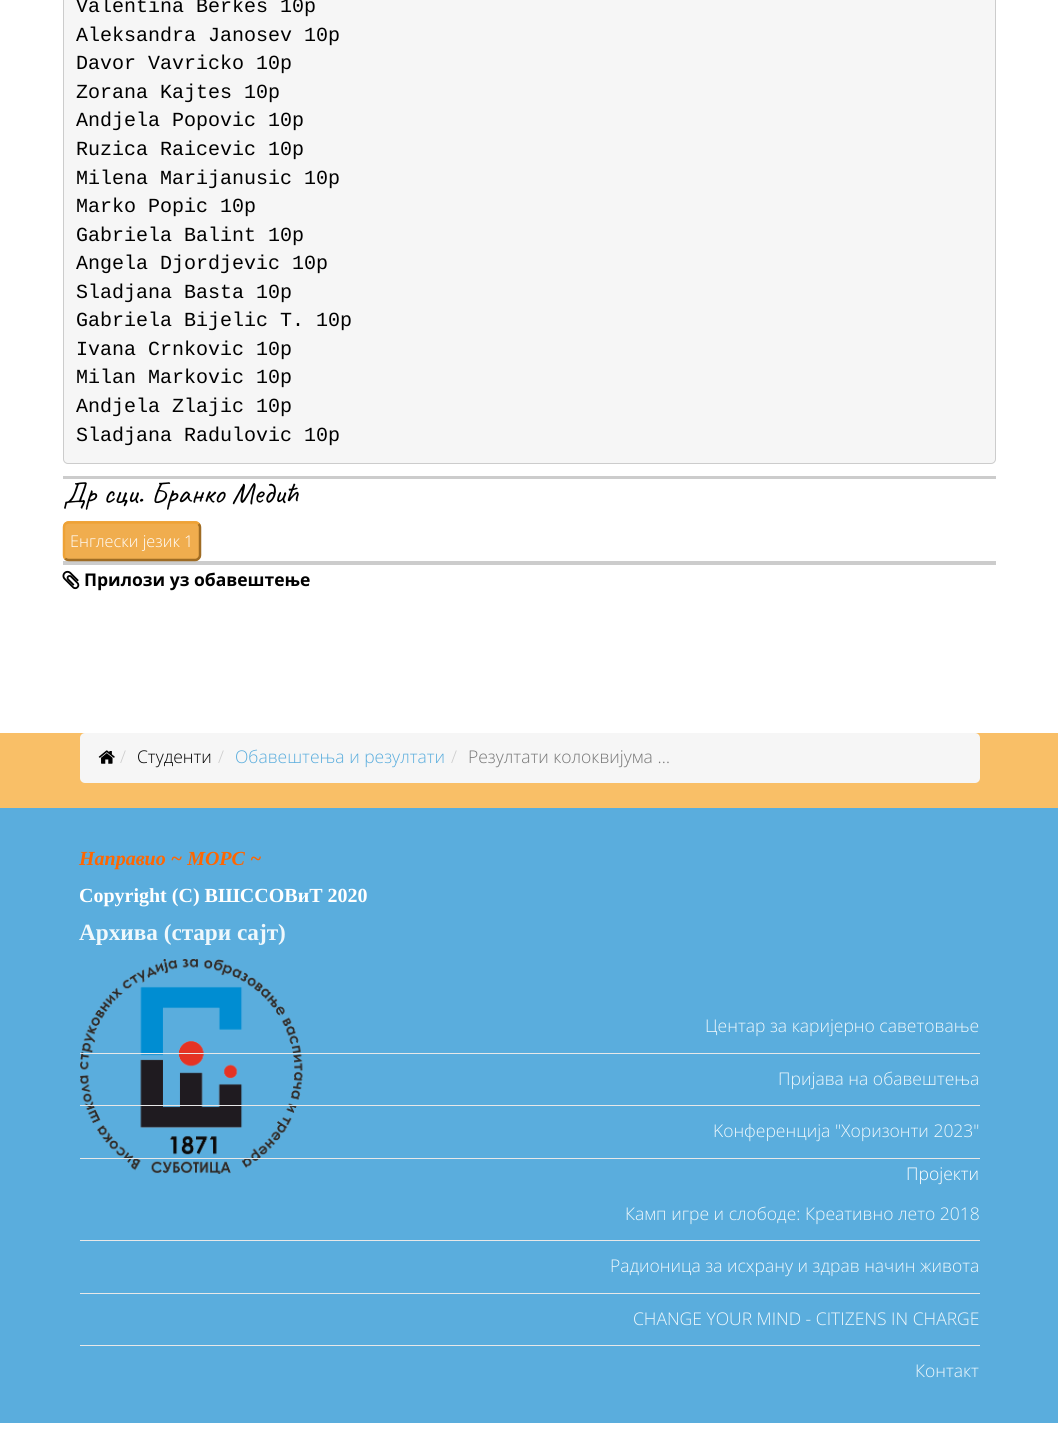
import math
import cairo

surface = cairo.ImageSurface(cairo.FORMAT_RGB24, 1058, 1434)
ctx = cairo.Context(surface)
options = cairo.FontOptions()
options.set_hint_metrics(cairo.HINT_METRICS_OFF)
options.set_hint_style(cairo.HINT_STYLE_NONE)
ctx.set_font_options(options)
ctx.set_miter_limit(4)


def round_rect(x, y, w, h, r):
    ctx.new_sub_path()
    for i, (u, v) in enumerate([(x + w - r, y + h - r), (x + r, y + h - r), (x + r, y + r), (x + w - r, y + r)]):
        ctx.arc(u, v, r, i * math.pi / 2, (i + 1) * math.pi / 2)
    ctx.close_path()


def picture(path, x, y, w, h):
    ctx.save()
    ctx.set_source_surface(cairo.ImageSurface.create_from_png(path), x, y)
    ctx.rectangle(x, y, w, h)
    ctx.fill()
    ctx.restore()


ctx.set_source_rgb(1, 1, 1)
ctx.paint()
ctx.set_source_rgb(0.961, 0.961, 0.961)
round_rect(63.5, -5.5, 932, 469, 4.5)
ctx.fill_preserve()
ctx.set_source_rgb(0.8, 0.8, 0.8)
ctx.set_line_width(1)
ctx.stroke()
ctx.select_font_face("Liberation Mono")
ctx.set_font_size(20)
ctx.set_source_rgb(0, 0, 0)
ctx.move_to(76, 12)
ctx.show_text("Valentina Berkes 10p")
ctx.move_to(76, 41)
ctx.show_text("Aleksandra Janosev 10p")
ctx.move_to(76, 69)
ctx.show_text("Davor Vavricko 10p")
ctx.move_to(76, 98)
ctx.show_text("Zorana Kajtes 10p")
ctx.move_to(76, 126)
ctx.show_text("Andjela Popovic 10p")
ctx.move_to(76, 155)
ctx.show_text("Ruzica Raicevic 10p")
ctx.move_to(76, 184)
ctx.show_text("Milena Marijanusic 10p")
ctx.move_to(76, 212)
ctx.show_text("Marko Popic 10p")
ctx.move_to(76, 241)
ctx.show_text("Gabriela Balint 10p")
ctx.move_to(76, 269)
ctx.show_text("Angela Djordjevic 10p")
ctx.move_to(76, 298)
ctx.show_text("Sladjana Basta 10p")
ctx.move_to(76, 326)
ctx.show_text("Gabriela Bijelic T. 10p")
ctx.move_to(76, 355)
ctx.show_text("Ivana Crnkovic 10p")
ctx.move_to(76, 383)
ctx.show_text("Milan Markovic 10p")
ctx.move_to(76, 412)
ctx.show_text("Andjela Zlajic 10p")
ctx.move_to(76, 441)
ctx.show_text("Sladjana Radulovic 10p")
ctx.set_source_rgb(0.8, 0.8, 0.8)
ctx.rectangle(63, 476, 933, 3)
ctx.fill()
ctx.select_font_face("Caveat")
ctx.set_font_size(30)
ctx.set_source_rgb(0, 0, 0)
ctx.move_to(63, 503)
ctx.show_text("Др сци. Бранко Медић")
ctx.set_source_rgb(0.941, 0.678, 0.306)
round_rect(63, 521, 138, 40, 6)
ctx.fill()
ctx.set_source_rgb(0.8, 0.8, 0.8)
ctx.rectangle(63, 561, 933, 4)
ctx.fill()
ctx.new_path()
ctx.move_to(198.5, 524)
ctx.curve_to(199.5, 525, 200, 526, 200, 527.5)
ctx.line_to(200, 555)
ctx.curve_to(200, 556.5, 199.5, 557.5, 198.5, 558.5)
ctx.curve_to(197.5, 559.5, 196.5, 560, 195, 560)
ctx.line_to(69, 560)
ctx.curve_to(67.5, 560, 66, 559.5, 65, 558.5)
ctx.set_source_rgb(0.624, 0.424, 0.141)
ctx.set_line_width(2.5)
ctx.stroke()
ctx.new_path()
ctx.move_to(65, 558.5)
ctx.curve_to(64.5, 557.5, 64, 556.5, 64, 555)
ctx.line_to(64, 527.5)
ctx.curve_to(64, 526, 64.5, 525, 65, 524)
ctx.curve_to(66, 523, 67.5, 522.5, 69, 522.5)
ctx.line_to(195, 522.5)
ctx.curve_to(196.5, 522.5, 197.5, 523, 198.5, 524)
ctx.set_source_rgb(0.933, 0.635, 0.212)
ctx.stroke()
ctx.select_font_face("Open Sans Light")
ctx.set_font_size(16.25)
ctx.set_source_rgb(1, 1, 1)
ctx.move_to(70, 547)
ctx.show_text("Енглески језик 1")
picture("img1.png", 62, 570, 18, 20)
ctx.select_font_face("Open Sans", cairo.FONT_SLANT_NORMAL, cairo.FONT_WEIGHT_BOLD)
ctx.set_font_size(17.5)
ctx.set_source_rgb(0, 0, 0)
ctx.move_to(84, 586)
ctx.show_text("Прилози уз обавештење")
ctx.set_source_rgb(0.976, 0.749, 0.404)
ctx.rectangle(0, 733, 1058, 75)
ctx.fill()
ctx.set_source_rgb(0.961, 0.961, 0.961)
round_rect(80, 733, 900, 50, 5)
ctx.fill()
picture("img2.png", 98, 750, 17, 14)
ctx.select_font_face("Open Sans Light")
ctx.set_source_rgb(0.8, 0.8, 0.8)
ctx.move_to(120, 763)
ctx.show_text("/")
ctx.set_source_rgb(0, 0, 0)
ctx.move_to(137, 763)
ctx.show_text("Студенти")
ctx.set_source_rgb(0.8, 0.8, 0.8)
ctx.move_to(218, 763)
ctx.show_text("/")
ctx.set_source_rgb(0.353, 0.678, 0.867)
ctx.move_to(235, 763)
ctx.show_text("Oбавештења и резултати")
ctx.set_source_rgb(0.8, 0.8, 0.8)
ctx.move_to(451, 763)
ctx.show_text("/")
ctx.set_source_rgb(0.467, 0.467, 0.467)
ctx.move_to(468, 763)
ctx.show_text("Резултати колоквијума …")
ctx.set_source_rgb(0.353, 0.678, 0.867)
ctx.rectangle(0, 808, 1058, 615)
ctx.fill()
ctx.select_font_face("Liberation Serif", cairo.FONT_SLANT_ITALIC, cairo.FONT_WEIGHT_BOLD)
ctx.set_font_size(20)
ctx.set_source_rgb(1, 0.4, 0)
ctx.move_to(79, 865)
ctx.show_text("Направио ~ МОРС ~")
ctx.select_font_face("Liberation Serif", cairo.FONT_SLANT_NORMAL, cairo.FONT_WEIGHT_BOLD)
ctx.set_source_rgb(1, 1, 1)
ctx.move_to(79, 902)
ctx.show_text("Copyright (C) ВШССОВиТ 2020")
ctx.set_font_size(23.25)
ctx.set_source_rgb(0.937, 0.969, 0.988)
ctx.move_to(79, 940)
ctx.show_text("Архива (стари сајт)")
picture("img3.png", 80, 959, 223, 215)
ctx.set_source_rgb(0.91, 0.91, 0.91)
ctx.rectangle(80, 1053, 900, 1)
ctx.fill()
ctx.select_font_face("Open Sans Light")
ctx.set_font_size(17.5)
ctx.set_source_rgb(0.937, 0.969, 0.988)
ctx.move_to(705, 1032)
ctx.show_text("Центар за каријерно саветовање")
ctx.set_source_rgb(0.91, 0.91, 0.91)
ctx.rectangle(80, 1105, 900, 1)
ctx.fill()
ctx.set_source_rgb(0.937, 0.969, 0.988)
ctx.move_to(778, 1085)
ctx.show_text("Пријава на обавештења")
ctx.set_source_rgb(0.91, 0.91, 0.91)
ctx.rectangle(80, 1158, 900, 1)
ctx.fill()
ctx.set_source_rgb(0.937, 0.969, 0.988)
ctx.move_to(713, 1137)
ctx.show_text("Koнференција \"Хоризонти 2023\"")
ctx.set_source_rgb(0.91, 0.91, 0.91)
ctx.rectangle(80, 1345, 900, 1)
ctx.fill()
ctx.set_source_rgb(1, 1, 1)
ctx.move_to(906, 1180)
ctx.show_text("Пројекти")
ctx.set_source_rgb(0.91, 0.91, 0.91)
ctx.rectangle(80, 1240, 900, 1)
ctx.fill()
ctx.set_source_rgb(0.937, 0.969, 0.988)
ctx.move_to(625, 1220)
ctx.show_text("Камп игре и слободе: Креативно лето 2018")
ctx.set_source_rgb(0.91, 0.91, 0.91)
ctx.rectangle(80, 1293, 900, 1)
ctx.fill()
ctx.set_source_rgb(0.937, 0.969, 0.988)
ctx.move_to(610, 1272)
ctx.show_text("Радионица за исхрану и здрав начин живота")
ctx.move_to(633, 1325)
ctx.show_text("CHANGE YOUR MIND - CITIZENS IN CHARGE")
ctx.move_to(915, 1377)
ctx.show_text("Контакт")
surface.write_to_png("page.png")
